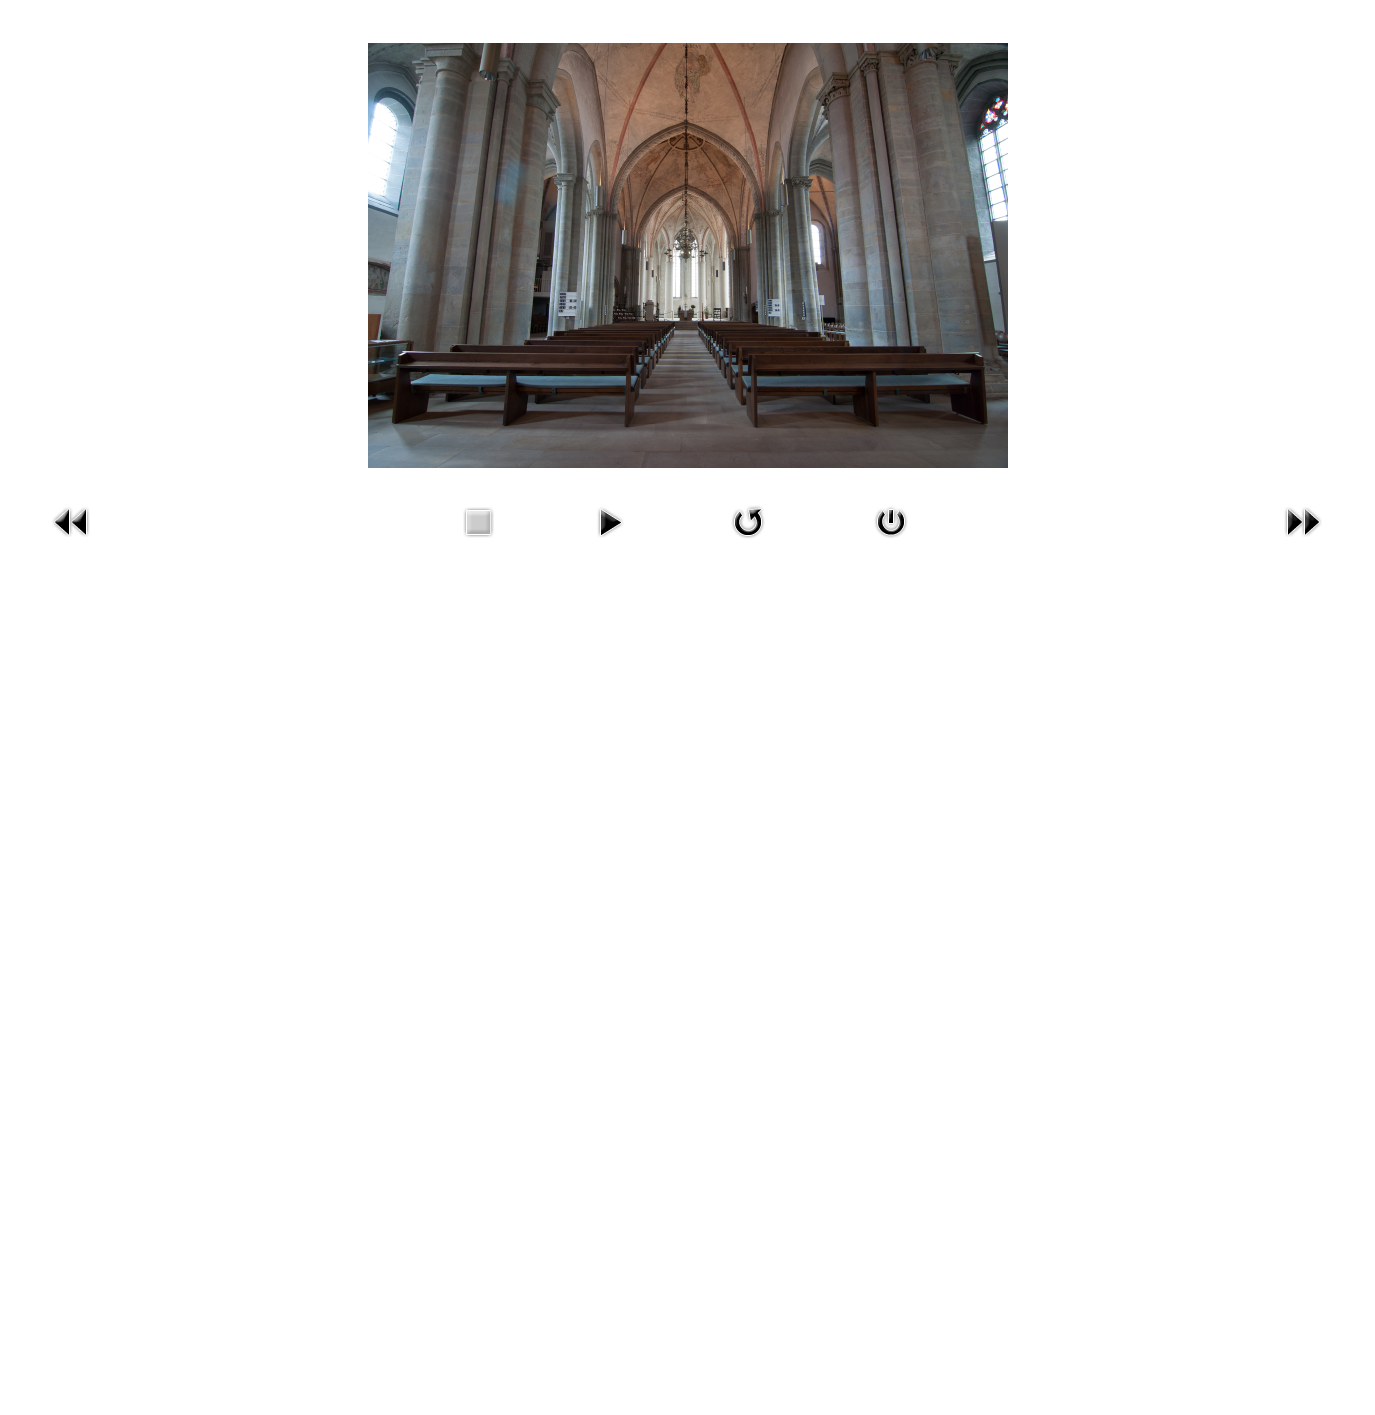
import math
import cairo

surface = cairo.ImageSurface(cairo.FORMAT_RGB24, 1375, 1415)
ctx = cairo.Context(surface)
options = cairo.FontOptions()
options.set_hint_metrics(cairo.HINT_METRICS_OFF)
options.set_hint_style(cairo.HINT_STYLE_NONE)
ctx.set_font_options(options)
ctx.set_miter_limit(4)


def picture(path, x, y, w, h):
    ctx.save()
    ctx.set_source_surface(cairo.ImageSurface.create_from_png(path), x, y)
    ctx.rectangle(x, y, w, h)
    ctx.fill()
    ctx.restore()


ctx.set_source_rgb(1, 1, 1)
ctx.paint()
picture("img1.png", 368, 43, 640, 425)
picture("img2.png", 52, 507, 38, 30)
picture("img3.png", 463, 507, 31, 31)
picture("img4.png", 597, 507, 27, 31)
picture("img5.png", 731, 505, 34, 34)
picture("img6.png", 874, 506, 34, 33)
picture("img7.png", 1284, 507, 38, 30)
surface.write_to_png("page.png")
